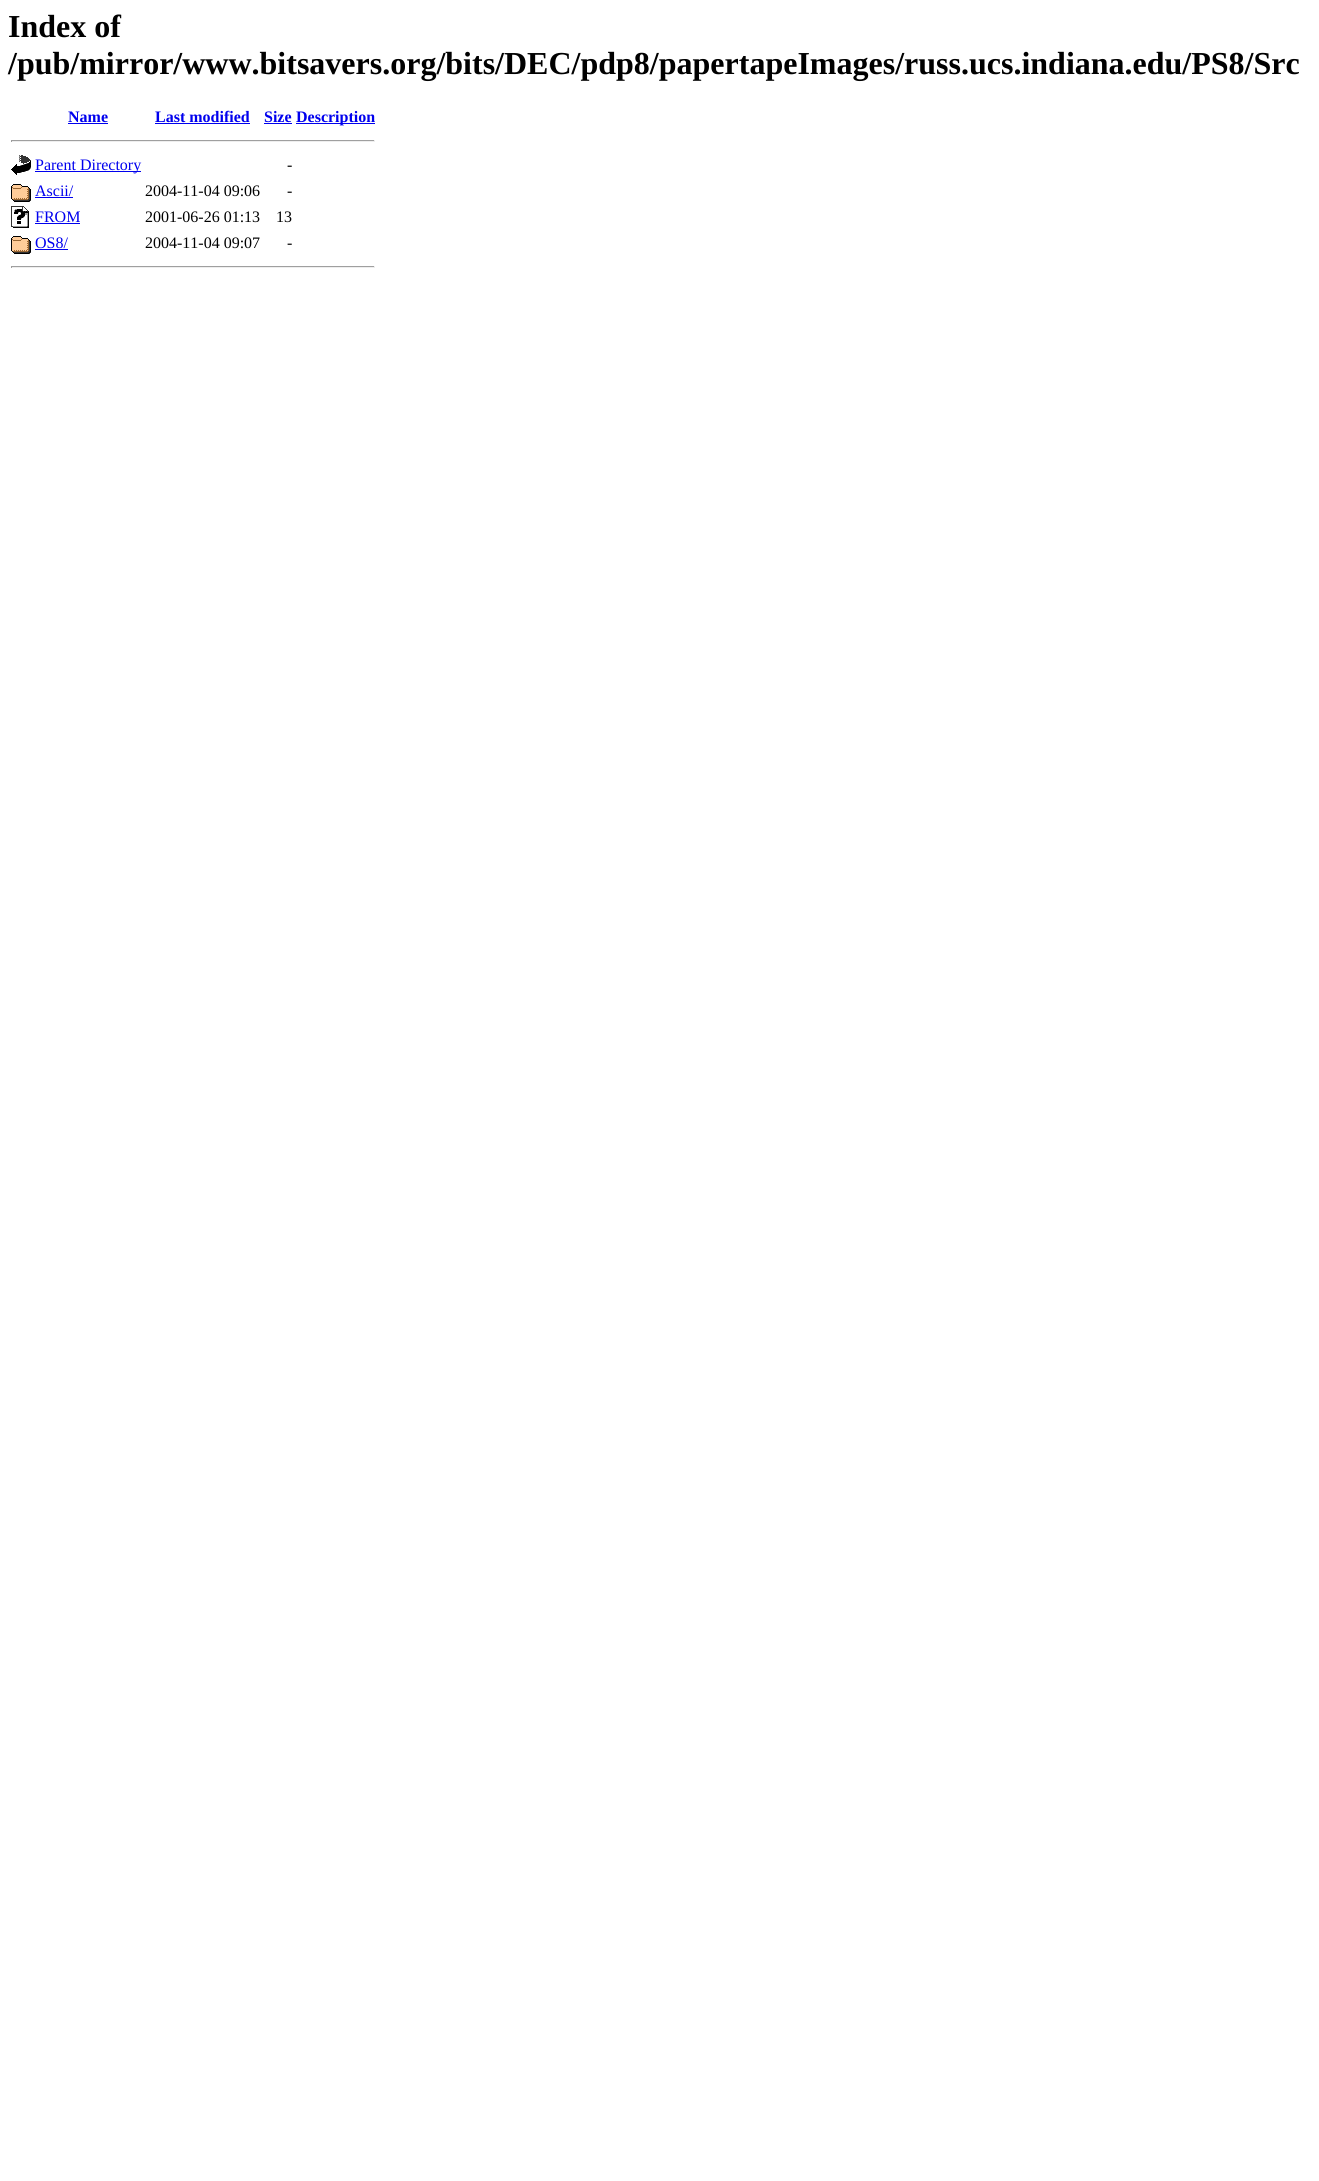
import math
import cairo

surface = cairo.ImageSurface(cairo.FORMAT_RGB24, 1319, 2181)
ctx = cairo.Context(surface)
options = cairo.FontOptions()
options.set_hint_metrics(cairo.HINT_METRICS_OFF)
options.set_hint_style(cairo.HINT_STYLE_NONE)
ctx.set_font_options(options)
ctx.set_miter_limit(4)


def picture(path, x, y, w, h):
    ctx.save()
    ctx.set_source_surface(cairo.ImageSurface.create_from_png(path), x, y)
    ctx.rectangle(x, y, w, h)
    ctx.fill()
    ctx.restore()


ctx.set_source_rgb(1, 1, 1)
ctx.paint()
ctx.select_font_face("Liberation Serif", cairo.FONT_SLANT_NORMAL, cairo.FONT_WEIGHT_BOLD)
ctx.set_font_size(32)
ctx.set_source_rgb(0, 0, 0)
ctx.move_to(8, 37)
ctx.show_text("Index of")
ctx.move_to(8, 74)
ctx.show_text("/pub/mirror/www.bitsavers.org/bits/DEC/pdp8/papertapeImages/russ.ucs.indiana.edu/PS8/Src")
ctx.set_font_size(16)
ctx.set_source_rgb(0, 0, 0.933)
ctx.move_to(68, 122)
ctx.show_text("Name")
ctx.rectangle(68, 123, 40, 1)
ctx.fill()
ctx.move_to(155, 122)
ctx.show_text("Last modified")
ctx.rectangle(155, 123, 95, 1)
ctx.fill()
ctx.move_to(264, 122)
ctx.show_text("Size")
ctx.rectangle(264, 123, 28, 1)
ctx.fill()
ctx.rectangle(296, 123, 79, 1)
ctx.fill()
ctx.move_to(296, 122)
ctx.show_text("Description")
ctx.set_source_rgb(0.624, 0.624, 0.624)
ctx.rectangle(11, 140, 364, 1)
ctx.fill()
ctx.set_source_rgb(0.933, 0.933, 0.933)
ctx.rectangle(374, 140, 1, 2)
ctx.fill()
ctx.rectangle(11, 141, 364, 1)
ctx.fill()
ctx.set_source_rgb(0.624, 0.624, 0.624)
ctx.rectangle(11, 140, 1, 2)
ctx.fill()
picture("img1.png", 11, 155, 20, 20)
ctx.set_source_rgb(0, 0, 0.933)
ctx.rectangle(35, 171, 106, 1)
ctx.fill()
ctx.select_font_face("Liberation Serif")
ctx.move_to(35, 170)
ctx.show_text("Parent Directory")
ctx.set_source_rgb(0, 0, 0)
ctx.move_to(287, 170)
ctx.show_text("-")
picture("img2.png", 11, 184, 20, 18)
ctx.set_source_rgb(0, 0, 0.933)
ctx.move_to(35, 196)
ctx.show_text("Ascii/")
ctx.rectangle(35, 197, 38, 1)
ctx.fill()
ctx.set_source_rgb(0, 0, 0)
ctx.move_to(145, 196)
ctx.show_text("2004-11-04 09:06")
ctx.move_to(287, 196)
ctx.show_text("-")
picture("img3.png", 11, 206, 18, 22)
ctx.set_source_rgb(0, 0, 0.933)
ctx.move_to(35, 222)
ctx.show_text("FROM")
ctx.rectangle(35, 223, 45, 1)
ctx.fill()
ctx.set_source_rgb(0, 0, 0)
ctx.move_to(145, 222)
ctx.show_text("2001-06-26 01:13")
ctx.move_to(276, 222)
ctx.show_text("13")
picture("img2.png", 11, 236, 20, 18)
ctx.set_source_rgb(0, 0, 0.933)
ctx.move_to(35, 248)
ctx.show_text("OS8/")
ctx.rectangle(35, 249, 33, 1)
ctx.fill()
ctx.set_source_rgb(0, 0, 0)
ctx.move_to(145, 248)
ctx.show_text("2004-11-04 09:07")
ctx.move_to(287, 248)
ctx.show_text("-")
ctx.set_source_rgb(0.624, 0.624, 0.624)
ctx.rectangle(11, 266, 364, 1)
ctx.fill()
ctx.set_source_rgb(0.933, 0.933, 0.933)
ctx.rectangle(374, 266, 1, 2)
ctx.fill()
ctx.rectangle(11, 267, 364, 1)
ctx.fill()
ctx.set_source_rgb(0.624, 0.624, 0.624)
ctx.rectangle(11, 266, 1, 2)
ctx.fill()
surface.write_to_png("page.png")
